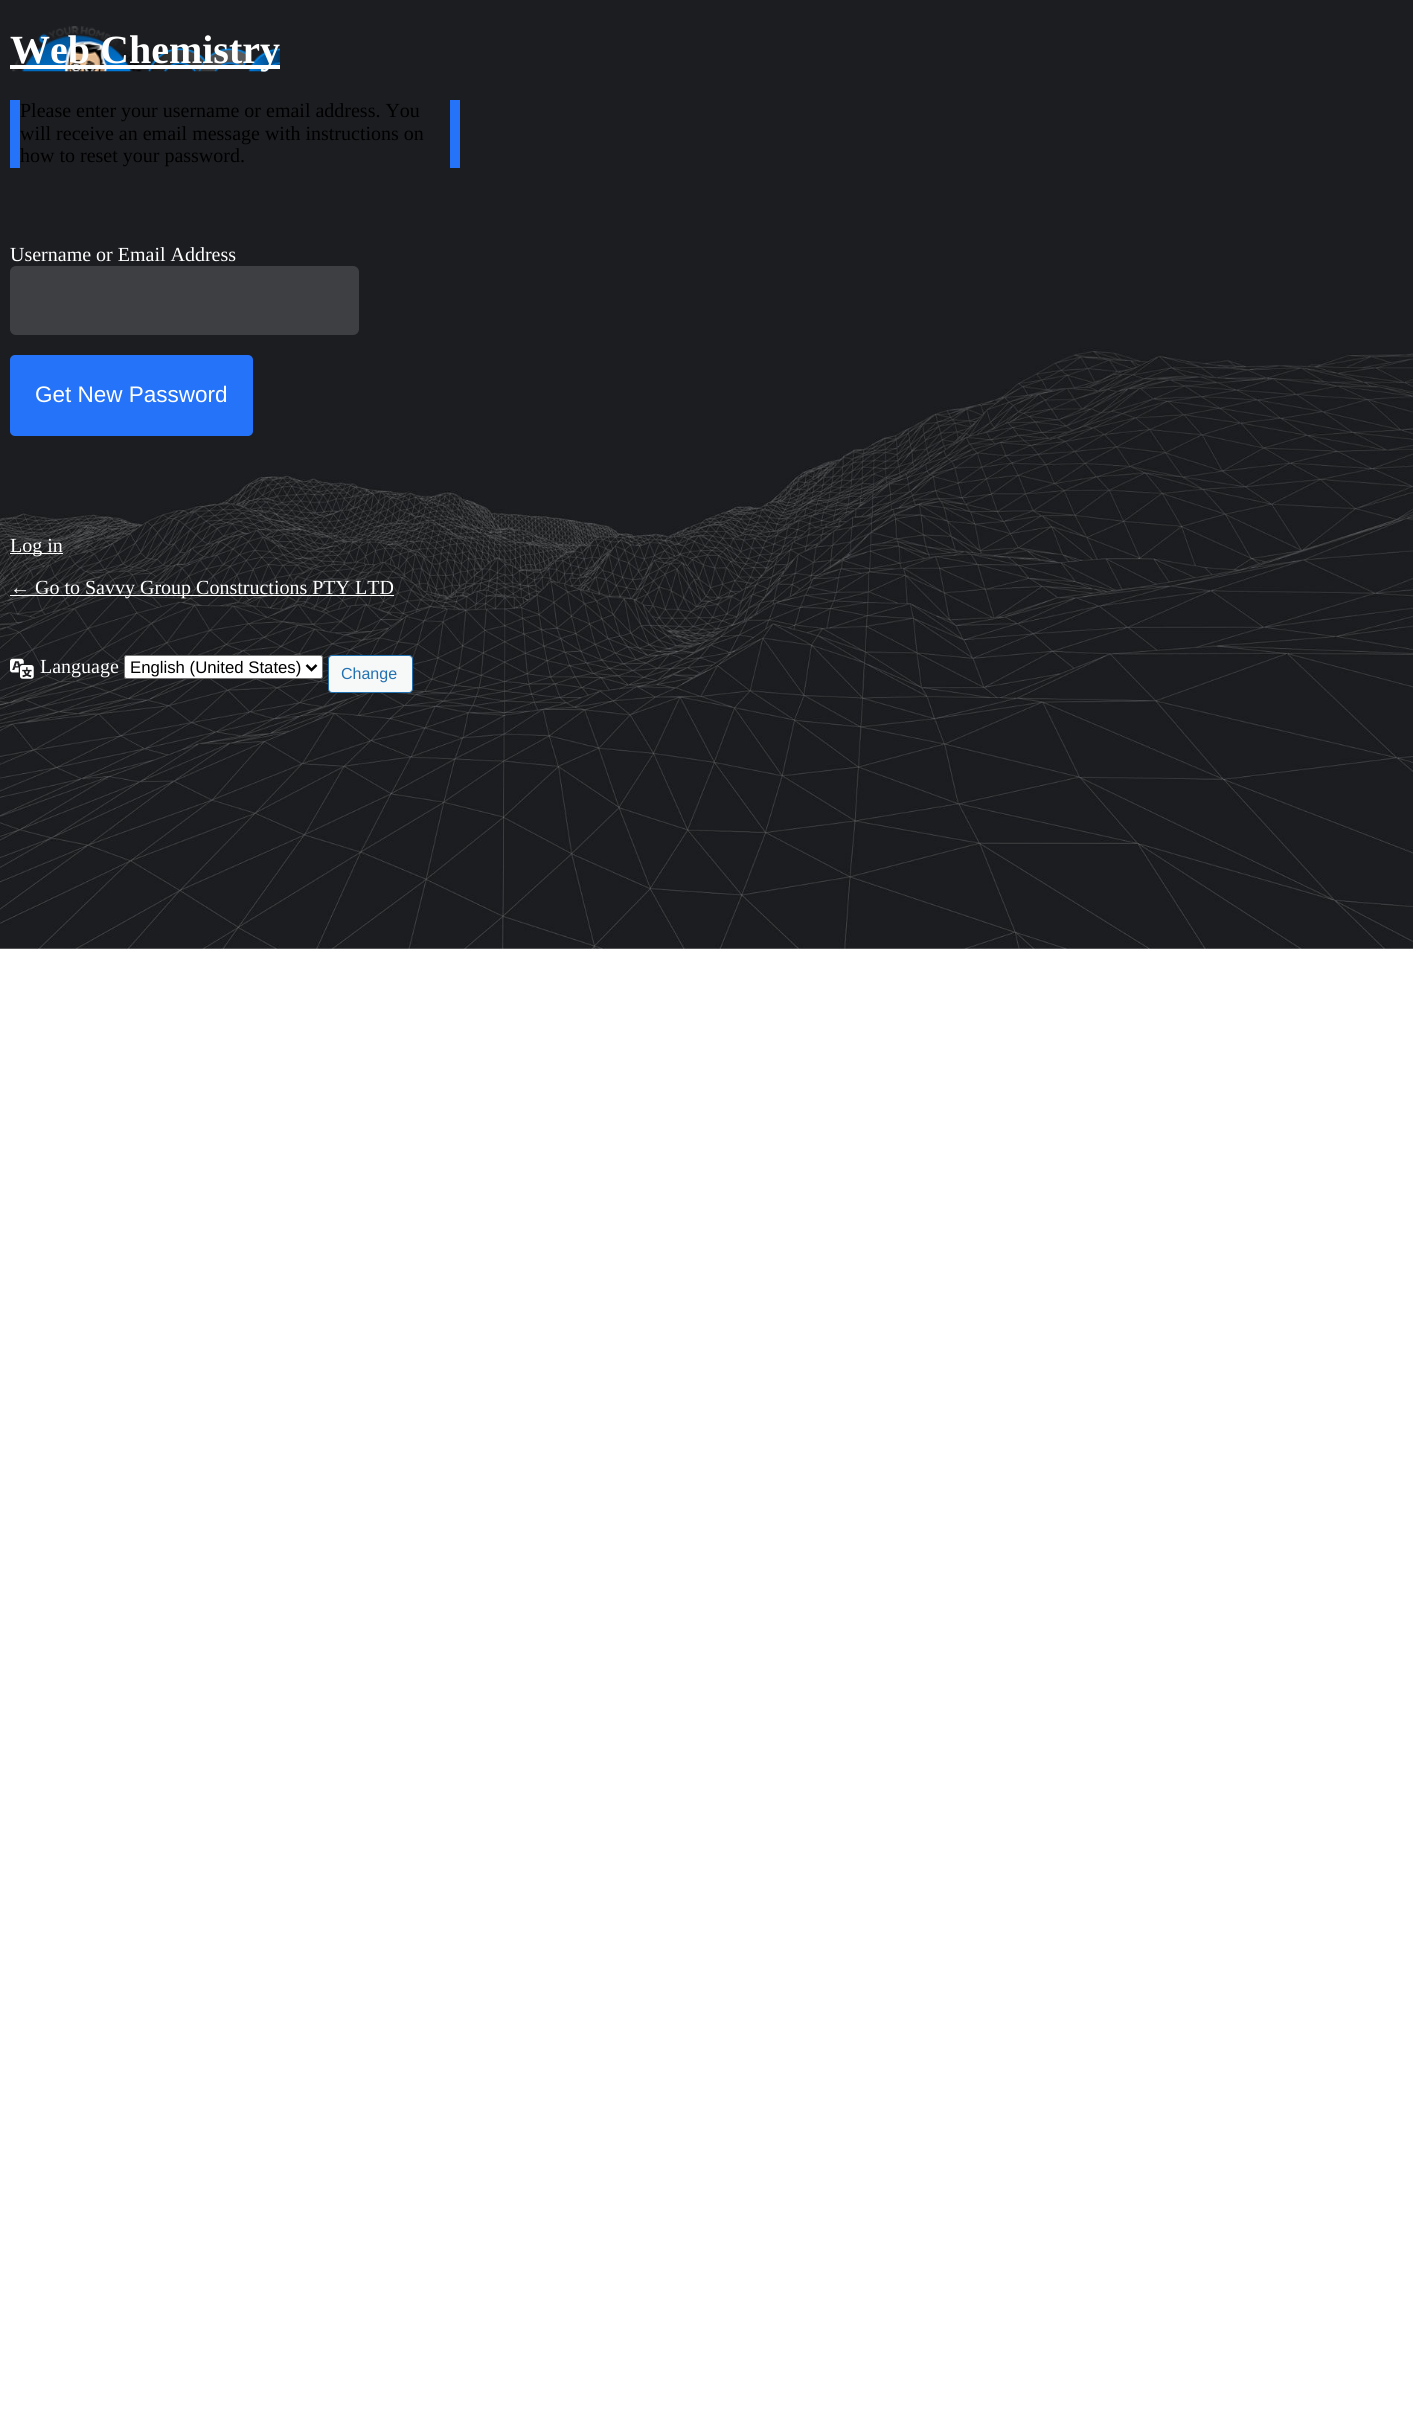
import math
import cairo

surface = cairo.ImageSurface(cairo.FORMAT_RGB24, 1413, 2425)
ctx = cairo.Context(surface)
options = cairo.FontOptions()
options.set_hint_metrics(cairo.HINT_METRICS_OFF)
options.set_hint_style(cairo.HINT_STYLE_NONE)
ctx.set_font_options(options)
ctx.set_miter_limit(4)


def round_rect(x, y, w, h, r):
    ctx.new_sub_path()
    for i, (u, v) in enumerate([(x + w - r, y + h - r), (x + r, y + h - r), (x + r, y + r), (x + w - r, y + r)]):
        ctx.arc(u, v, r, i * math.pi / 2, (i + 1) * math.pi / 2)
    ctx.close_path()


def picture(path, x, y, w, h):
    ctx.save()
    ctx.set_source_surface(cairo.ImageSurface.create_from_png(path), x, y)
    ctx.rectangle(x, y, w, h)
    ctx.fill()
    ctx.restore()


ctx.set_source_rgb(1, 1, 1)
ctx.paint()
picture("img1.png", 0, 0, 1413, 949)
picture("img2.png", 12, 26, 268, 46)
ctx.set_source_rgb(1, 1, 1)
ctx.rectangle(10, 65, 270, 4)
ctx.fill()
ctx.select_font_face("Liberation Serif", cairo.FONT_SLANT_NORMAL, cairo.FONT_WEIGHT_BOLD)
ctx.set_font_size(40)
ctx.move_to(10, 63)
ctx.show_text("Web Chemistry")
ctx.set_source_rgb(0.145, 0.451, 0.976)
ctx.rectangle(450, 100, 10, 68)
ctx.fill()
ctx.rectangle(10, 100, 10, 68)
ctx.fill()
ctx.select_font_face("Liberation Serif")
ctx.set_font_size(20)
ctx.set_source_rgb(0, 0, 0)
ctx.move_to(20, 117)
ctx.show_text("Please enter your username or email address. You")
ctx.move_to(20, 140)
ctx.show_text("will receive an email message with instructions on")
ctx.move_to(20, 162)
ctx.show_text("how to reset your password.")
ctx.set_source_rgb(1, 1, 1)
ctx.move_to(10, 261)
ctx.show_text("Username or Email Address")
ctx.set_source_rgb(0.243, 0.247, 0.259)
round_rect(10, 266, 349, 69, 6)
ctx.fill()
ctx.set_source_rgb(0.145, 0.451, 0.976)
round_rect(10, 355, 243, 81, 5)
ctx.fill()
ctx.select_font_face("Liberation Sans")
ctx.set_font_size(22.5)
ctx.set_source_rgb(1, 1, 1)
ctx.move_to(35, 402)
ctx.show_text("Get New Password")
ctx.rectangle(10, 553, 53, 1)
ctx.fill()
ctx.select_font_face("Liberation Serif")
ctx.set_font_size(20)
ctx.move_to(10, 552)
ctx.show_text("Log in")
ctx.rectangle(10, 595, 384, 1)
ctx.fill()
ctx.move_to(10, 594)
ctx.show_text("← Go to Savvy Group Constructions PTY LTD")
picture("img3.png", 10, 658, 24, 21)
ctx.move_to(40, 673)
ctx.show_text("Language")
round_rect(124.5, 655.5, 198, 23, 2)
ctx.fill_preserve()
ctx.set_source_rgb(0.463, 0.463, 0.463)
ctx.set_line_width(1)
ctx.stroke()
ctx.new_path()
ctx.move_to(306.5, 665)
ctx.line_to(311.5, 670)
ctx.line_to(316.5, 665)
ctx.set_source_rgb(0, 0, 0)
ctx.set_line_width(2.5)
ctx.stroke()
ctx.select_font_face("Liberation Sans")
ctx.set_font_size(16.75)
ctx.move_to(130, 673)
ctx.show_text("English (United States)")
ctx.set_source_rgb(0.965, 0.969, 0.969)
round_rect(328.5, 655.5, 84, 37, 3.5)
ctx.fill_preserve()
ctx.set_source_rgb(0.133, 0.443, 0.694)
ctx.set_line_width(1)
ctx.stroke()
ctx.set_font_size(16)
ctx.move_to(341, 679)
ctx.show_text("Change")
surface.write_to_png("page.png")
